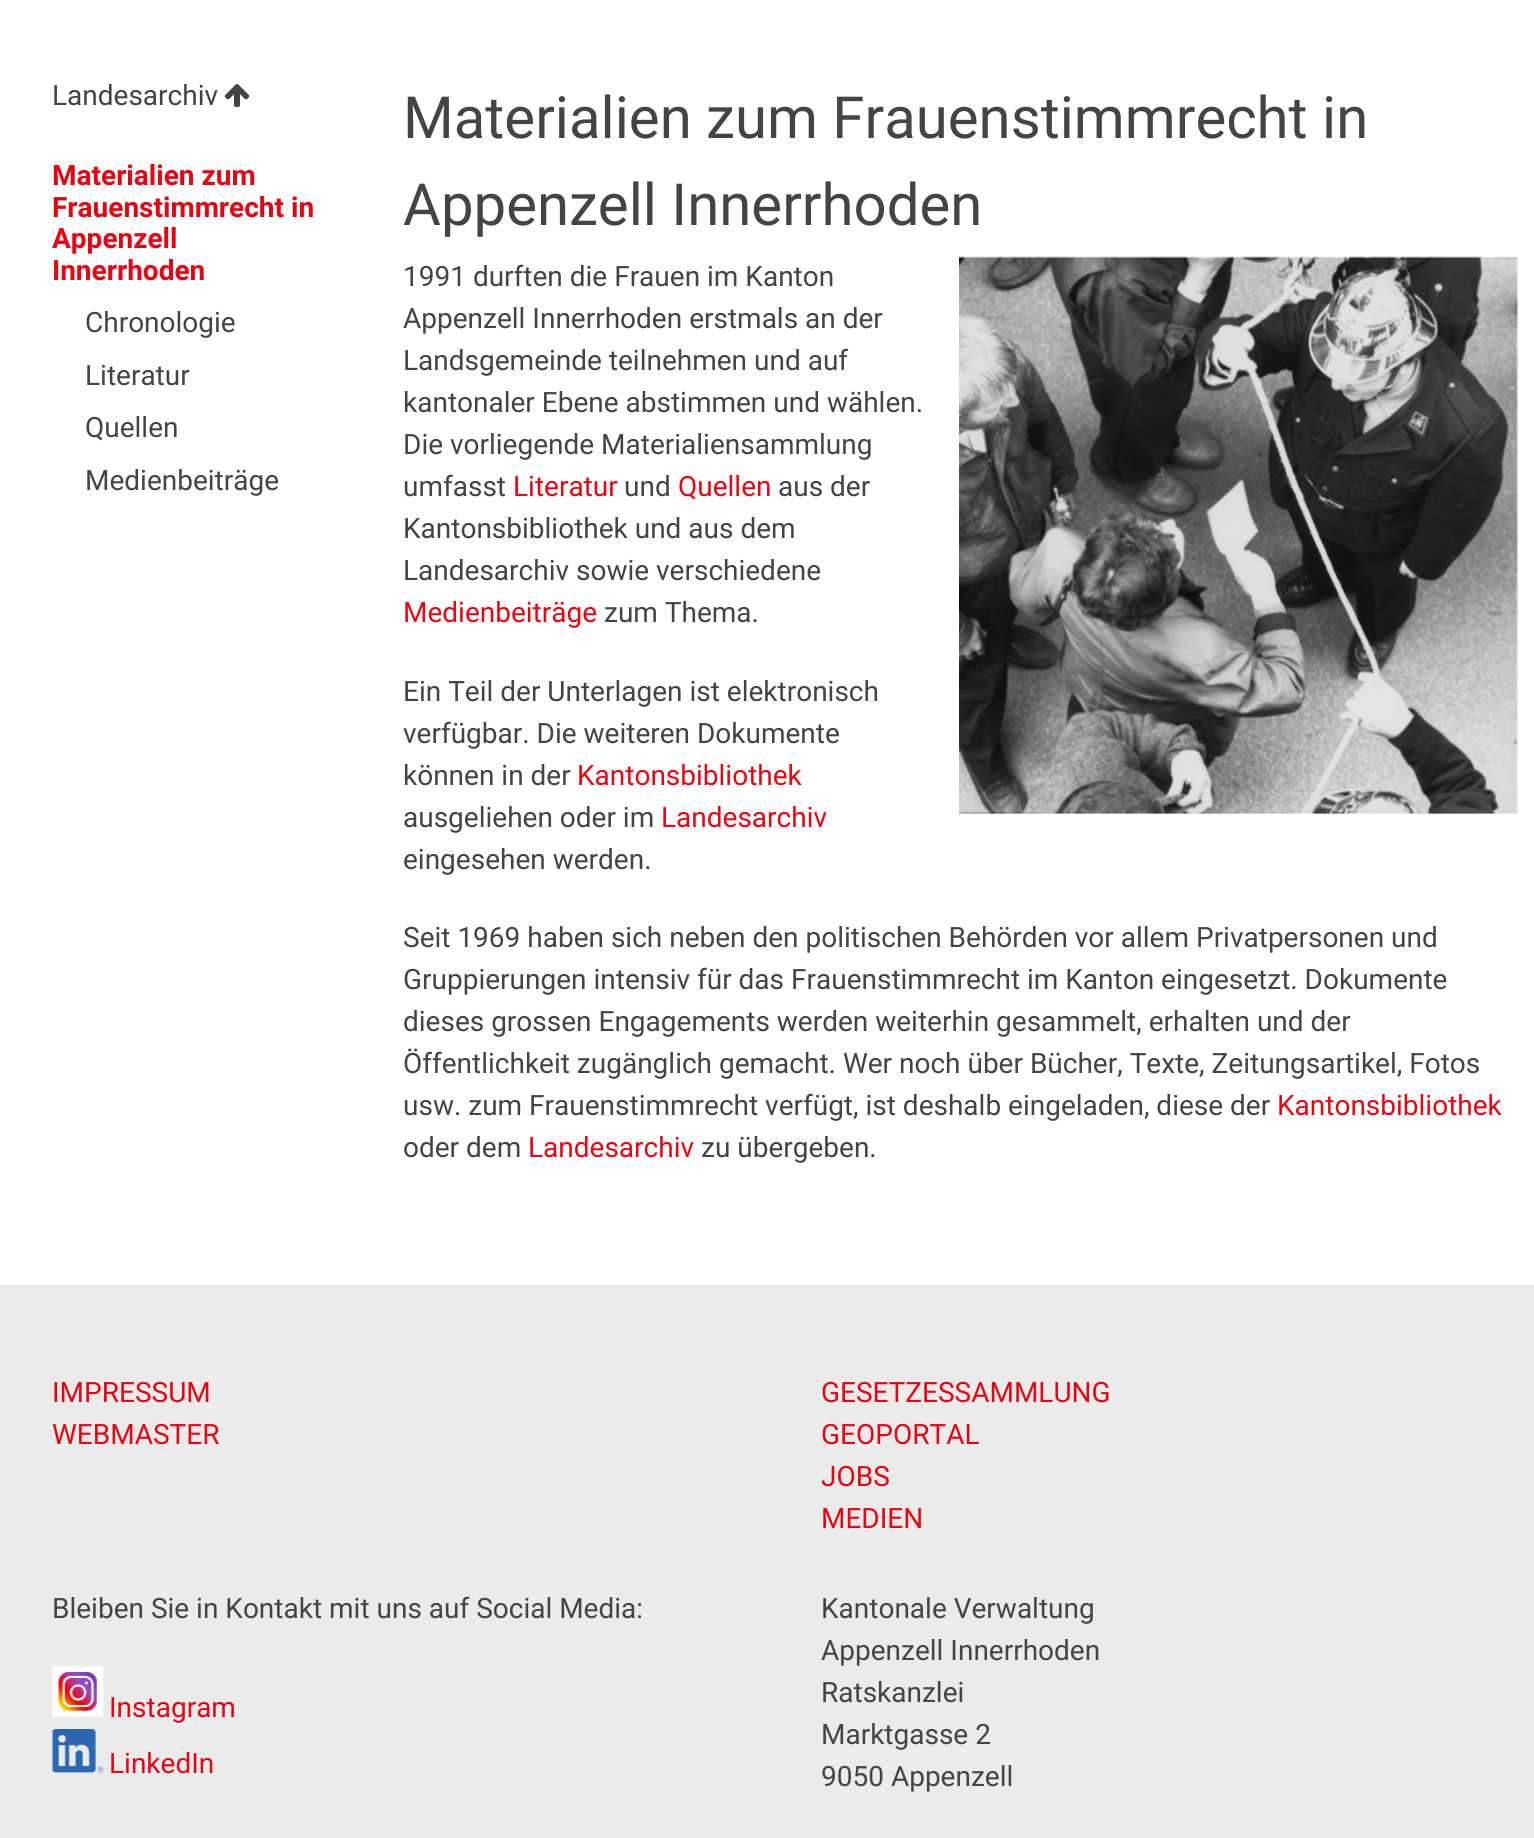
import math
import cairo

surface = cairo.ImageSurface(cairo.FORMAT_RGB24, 1534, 1838)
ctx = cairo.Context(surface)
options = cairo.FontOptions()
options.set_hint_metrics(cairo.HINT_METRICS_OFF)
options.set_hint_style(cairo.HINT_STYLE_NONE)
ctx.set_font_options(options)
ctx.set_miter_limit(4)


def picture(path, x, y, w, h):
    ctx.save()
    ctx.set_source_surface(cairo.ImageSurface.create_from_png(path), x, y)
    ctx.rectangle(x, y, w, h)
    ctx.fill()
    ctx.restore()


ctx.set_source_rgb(1, 1, 1)
ctx.paint()
ctx.select_font_face("Roboto")
ctx.set_font_size(28)
ctx.set_source_rgb(0.267, 0.267, 0.267)
ctx.move_to(52, 105)
ctx.show_text("Landesarchiv")
picture("img1.png", 224, 84, 26, 23)
ctx.select_font_face("Roboto", cairo.FONT_SLANT_NORMAL, cairo.FONT_WEIGHT_BOLD)
ctx.set_source_rgb(0.89, 0.02, 0.075)
ctx.move_to(52, 185)
ctx.show_text("Materialien zum")
ctx.move_to(52, 217)
ctx.show_text("Frauenstimmrecht in")
ctx.move_to(52, 248)
ctx.show_text("Appenzell")
ctx.move_to(52, 280)
ctx.show_text("Innerrhoden")
ctx.select_font_face("Roboto")
ctx.set_source_rgb(0.267, 0.267, 0.267)
ctx.move_to(85, 332)
ctx.show_text("Chronologie")
ctx.move_to(85, 385)
ctx.show_text("Literatur")
ctx.move_to(85, 437)
ctx.show_text("Quellen")
ctx.move_to(85, 490)
ctx.show_text("Medienbeiträge")
ctx.set_font_size(58.1)
ctx.move_to(403, 138)
ctx.show_text("Materialien zum Frauenstimmrecht in")
ctx.move_to(403, 225)
ctx.show_text("Appenzell Innerrhoden")
ctx.set_font_size(28)
ctx.move_to(403, 286)
ctx.show_text("1991 durften die Frauen im Kanton")
ctx.move_to(403, 328)
ctx.show_text("Appenzell Innerrhoden erstmals an der")
ctx.move_to(403, 370)
ctx.show_text("Landsgemeinde teilnehmen und auf")
ctx.move_to(403, 412)
ctx.show_text("kantonaler Ebene abstimmen und wählen.")
ctx.move_to(403, 454)
ctx.show_text("Die vorliegende Materialiensammlung")
ctx.move_to(403, 496)
ctx.show_text("umfasst")
ctx.set_source_rgb(0.89, 0.02, 0.075)
ctx.move_to(513, 496)
ctx.show_text("Literatur")
ctx.set_source_rgb(0.267, 0.267, 0.267)
ctx.move_to(624, 496)
ctx.show_text("und")
ctx.set_source_rgb(0.89, 0.02, 0.075)
ctx.move_to(678, 496)
ctx.show_text("Quellen")
ctx.set_source_rgb(0.267, 0.267, 0.267)
ctx.move_to(778, 496)
ctx.show_text("aus der")
ctx.move_to(403, 538)
ctx.show_text("Kantonsbibliothek und aus dem")
ctx.move_to(403, 580)
ctx.show_text("Landesarchiv sowie verschiedene")
ctx.set_source_rgb(0.89, 0.02, 0.075)
ctx.move_to(403, 622)
ctx.show_text("Medienbeiträge")
ctx.set_source_rgb(0.267, 0.267, 0.267)
ctx.move_to(604, 622)
ctx.show_text("zum Thema.")
picture("img2.png", 959, 256, 559, 558)
ctx.move_to(403, 701)
ctx.show_text("Ein Teil der Unterlagen ist elektronisch")
ctx.move_to(403, 743)
ctx.show_text("verfügbar. Die weiteren Dokumente")
ctx.move_to(403, 785)
ctx.show_text("können in der")
ctx.set_source_rgb(0.89, 0.02, 0.075)
ctx.move_to(577, 785)
ctx.show_text("Kantonsbibliothek")
ctx.set_source_rgb(0.267, 0.267, 0.267)
ctx.move_to(403, 827)
ctx.show_text("ausgeliehen oder im")
ctx.set_source_rgb(0.89, 0.02, 0.075)
ctx.move_to(661, 827)
ctx.show_text("Landesarchiv")
ctx.set_source_rgb(0.267, 0.267, 0.267)
ctx.move_to(403, 869)
ctx.show_text("eingesehen werden.")
ctx.move_to(403, 947)
ctx.show_text("Seit 1969 haben sich neben den politischen Behörden vor allem Privatpersonen und")
ctx.move_to(403, 989)
ctx.show_text("Gruppierungen intensiv für das Frauenstimmrecht im Kanton eingesetzt. Dokumente")
ctx.move_to(403, 1031)
ctx.show_text("dieses grossen Engagements werden weiterhin gesammelt, erhalten und der")
ctx.move_to(403, 1073)
ctx.show_text("Öffentlichkeit zugänglich gemacht. Wer noch über Bücher, Texte, Zeitungsartikel, Fotos")
ctx.move_to(403, 1115)
ctx.show_text("usw. zum Frauenstimmrecht verfügt, ist deshalb eingeladen, diese der")
ctx.set_source_rgb(0.89, 0.02, 0.075)
ctx.move_to(1277, 1115)
ctx.show_text("Kantonsbibliothek")
ctx.set_source_rgb(0.267, 0.267, 0.267)
ctx.move_to(403, 1157)
ctx.show_text("oder dem")
ctx.set_source_rgb(0.89, 0.02, 0.075)
ctx.move_to(528, 1157)
ctx.show_text("Landesarchiv")
ctx.set_source_rgb(0.267, 0.267, 0.267)
ctx.move_to(701, 1157)
ctx.show_text("zu übergeben.")
ctx.set_source_rgb(0.918, 0.918, 0.918)
ctx.rectangle(0, 1285, 1534, 553)
ctx.fill()
ctx.set_source_rgb(0.89, 0.02, 0.075)
ctx.move_to(52, 1402)
ctx.show_text("IMPRESSUM")
ctx.move_to(52, 1444)
ctx.show_text("WEBMASTER")
ctx.move_to(821, 1402)
ctx.show_text("GESETZESSAMMLUNG")
ctx.move_to(821, 1444)
ctx.show_text("GEOPORTAL")
ctx.move_to(821, 1486)
ctx.show_text("JOBS")
ctx.move_to(821, 1528)
ctx.show_text("MEDIEN")
ctx.set_source_rgb(0.267, 0.267, 0.267)
ctx.move_to(52, 1618)
ctx.show_text("Bleiben Sie in Kontakt mit uns auf Social Media:")
picture("img3.png", 52, 1666, 52, 51)
ctx.set_source_rgb(0.89, 0.02, 0.075)
ctx.move_to(109, 1717)
ctx.show_text("Instagram")
picture("img4.png", 51, 1729, 53, 44)
ctx.move_to(109, 1773)
ctx.show_text("LinkedIn")
ctx.set_source_rgb(0.267, 0.267, 0.267)
ctx.move_to(821, 1618)
ctx.show_text("Kantonale Verwaltung")
ctx.move_to(821, 1660)
ctx.show_text("Appenzell Innerrhoden")
ctx.move_to(821, 1702)
ctx.show_text("Ratskanzlei")
ctx.move_to(821, 1744)
ctx.show_text("Marktgasse 2")
ctx.move_to(821, 1786)
ctx.show_text("9050 Appenzell")
surface.write_to_png("page.png")
